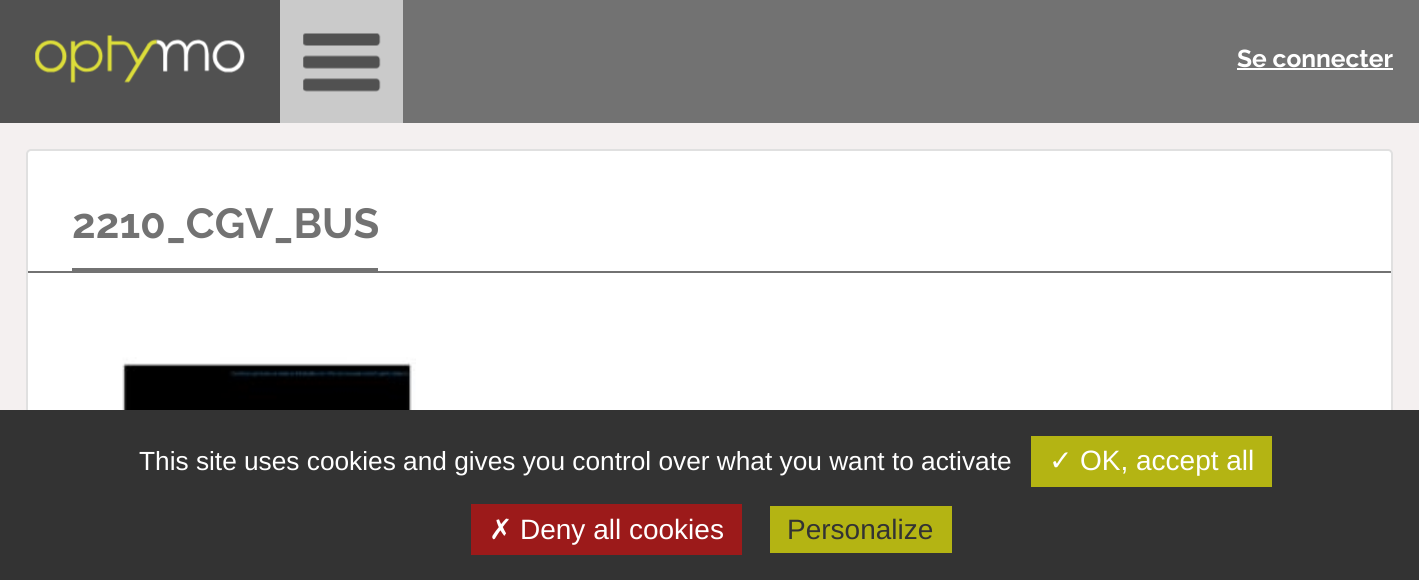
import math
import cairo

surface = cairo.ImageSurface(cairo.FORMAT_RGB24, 1419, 580)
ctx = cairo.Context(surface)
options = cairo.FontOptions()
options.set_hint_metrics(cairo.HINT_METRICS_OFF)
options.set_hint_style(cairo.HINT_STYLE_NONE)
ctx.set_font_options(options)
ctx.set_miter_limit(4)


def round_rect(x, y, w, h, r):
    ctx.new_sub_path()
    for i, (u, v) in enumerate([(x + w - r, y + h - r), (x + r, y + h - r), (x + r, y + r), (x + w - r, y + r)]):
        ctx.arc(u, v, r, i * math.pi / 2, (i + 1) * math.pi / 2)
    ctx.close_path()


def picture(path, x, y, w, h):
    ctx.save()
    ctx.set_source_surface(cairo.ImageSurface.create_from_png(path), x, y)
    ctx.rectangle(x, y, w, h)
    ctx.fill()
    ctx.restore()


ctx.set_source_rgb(0.957, 0.941, 0.941)
ctx.paint()
ctx.set_source_rgb(0.318, 0.318, 0.318)
ctx.rectangle(0, 0, 280, 123)
ctx.fill()
picture("img1.png", 35, 35, 210, 48)
ctx.set_source_rgb(0.792, 0.792, 0.792)
ctx.rectangle(280, 0, 123, 123)
ctx.fill()
picture("img2.png", 303, 33, 78, 59)
ctx.set_source_rgb(0.447, 0.447, 0.447)
ctx.rectangle(403, 0, 1016, 123)
ctx.fill()
ctx.select_font_face("Raleway", cairo.FONT_SLANT_NORMAL, cairo.FONT_WEIGHT_BOLD)
ctx.set_font_size(24.5)
ctx.set_source_rgb(1, 1, 1)
ctx.move_to(1237, 67)
ctx.show_text("Se connecter")
ctx.rectangle(1237, 68, 156, 2)
ctx.fill()
round_rect(27, 150, 1365, 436, 4)
ctx.fill_preserve()
ctx.set_source_rgb(0.878, 0.878, 0.878)
ctx.stroke()
ctx.set_source_rgb(0.447, 0.447, 0.447)
ctx.rectangle(28, 271, 1363, 2)
ctx.fill()
ctx.set_font_size(42)
ctx.move_to(72, 238)
ctx.show_text("2210_CGV_BUS")
ctx.rectangle(72, 268, 306, 3)
ctx.fill()
picture("img3.png", 108, 357, 308, 53)
ctx.set_source_rgb(0.2, 0.2, 0.2)
ctx.rectangle(0, 410, 1419, 170)
ctx.fill()
ctx.select_font_face("Liberation Sans")
ctx.set_font_size(26.25)
ctx.set_source_rgb(1, 1, 1)
ctx.move_to(139, 470)
ctx.show_text("This site uses cookies and gives you control over what you want to activate")
ctx.set_source_rgb(0.706, 0.706, 0.078)
ctx.rectangle(1031, 436, 241, 51)
ctx.fill()
ctx.select_font_face("DejaVu Sans")
ctx.set_font_size(28)
ctx.set_source_rgb(1, 1, 1)
ctx.move_to(1049, 470)
ctx.show_text("✓")
ctx.select_font_face("Liberation Sans")
ctx.move_to(1080, 470)
ctx.show_text("OK, accept all")
ctx.set_source_rgb(0.612, 0.102, 0.102)
ctx.rectangle(471, 504, 271, 51)
ctx.fill()
ctx.select_font_face("DejaVu Sans")
ctx.set_source_rgb(1, 1, 1)
ctx.move_to(489, 539)
ctx.show_text("✗")
ctx.select_font_face("Liberation Sans")
ctx.move_to(520, 539)
ctx.show_text("Deny all cookies")
ctx.set_source_rgb(0.706, 0.706, 0.078)
ctx.rectangle(770, 506, 182, 47)
ctx.fill()
ctx.set_source_rgb(0.2, 0.2, 0.2)
ctx.move_to(787, 539)
ctx.show_text("Personalize")
surface.write_to_png("page.png")
